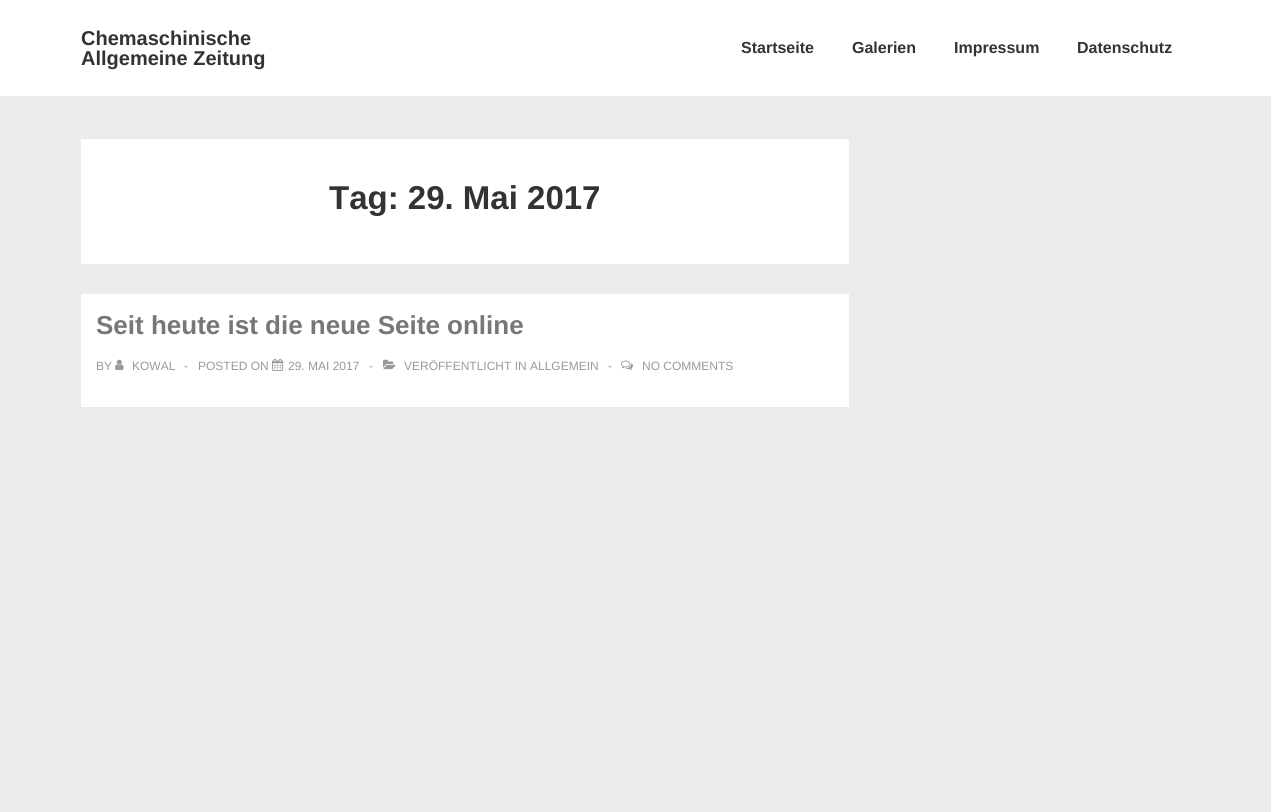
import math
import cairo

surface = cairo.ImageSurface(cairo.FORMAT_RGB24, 1271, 812)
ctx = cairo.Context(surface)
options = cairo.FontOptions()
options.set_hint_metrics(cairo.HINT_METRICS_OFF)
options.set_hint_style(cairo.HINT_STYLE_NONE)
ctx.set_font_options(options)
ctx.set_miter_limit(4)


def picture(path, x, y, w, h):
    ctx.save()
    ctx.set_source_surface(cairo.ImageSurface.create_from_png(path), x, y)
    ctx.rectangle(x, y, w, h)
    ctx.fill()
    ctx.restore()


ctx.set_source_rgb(0.918, 0.918, 0.918)
ctx.paint()
ctx.set_source_rgb(1, 1, 1)
ctx.rectangle(0, 0, 1271, 96)
ctx.fill()
ctx.select_font_face("Liberation Sans", cairo.FONT_SLANT_NORMAL, cairo.FONT_WEIGHT_BOLD)
ctx.set_font_size(20)
ctx.set_source_rgb(0.2, 0.2, 0.2)
ctx.move_to(81, 45)
ctx.show_text("Chemaschinische")
ctx.move_to(81, 65)
ctx.show_text("Allgemeine Zeitung")
ctx.set_font_size(16)
ctx.move_to(741, 53)
ctx.show_text("Startseite")
ctx.move_to(852, 53)
ctx.show_text("Galerien")
ctx.move_to(954, 53)
ctx.show_text("Impressum")
ctx.move_to(1077, 53)
ctx.show_text("Datenschutz")
ctx.set_source_rgb(1, 1, 1)
ctx.rectangle(81, 139, 768, 125)
ctx.fill()
ctx.set_font_size(33)
ctx.set_source_rgb(0.2, 0.2, 0.2)
ctx.move_to(329, 209)
ctx.show_text("Tag: 29. Mai 2017")
ctx.set_source_rgb(1, 1, 1)
ctx.rectangle(81, 294, 768, 113)
ctx.fill()
ctx.set_font_size(26)
ctx.set_source_rgb(0.467, 0.467, 0.467)
ctx.move_to(96, 334)
ctx.show_text("Seit heute ist die neue Seite online")
ctx.select_font_face("Liberation Sans")
ctx.set_font_size(12)
ctx.set_source_rgb(0.6, 0.6, 0.6)
ctx.move_to(96, 370)
ctx.show_text("BY")
picture("img1.png", 115, 359, 9, 11)
ctx.move_to(132, 370)
ctx.show_text("KOWAL")
ctx.move_to(184, 370)
ctx.show_text("-")
ctx.move_to(198, 370)
ctx.show_text("POSTED ON")
picture("img2.png", 272, 358, 12, 13)
ctx.move_to(288, 370)
ctx.show_text("29. MAI 2017")
ctx.move_to(369, 370)
ctx.show_text("-")
picture("img3.png", 383, 359, 13, 11)
ctx.move_to(404, 370)
ctx.show_text("VERÖFFENTLICHT IN ALLGEMEIN")
ctx.move_to(608, 370)
ctx.show_text("-")
picture("img4.png", 621, 360, 12, 10)
ctx.move_to(642, 370)
ctx.show_text("NO COMMENTS")
surface.write_to_png("page.png")
